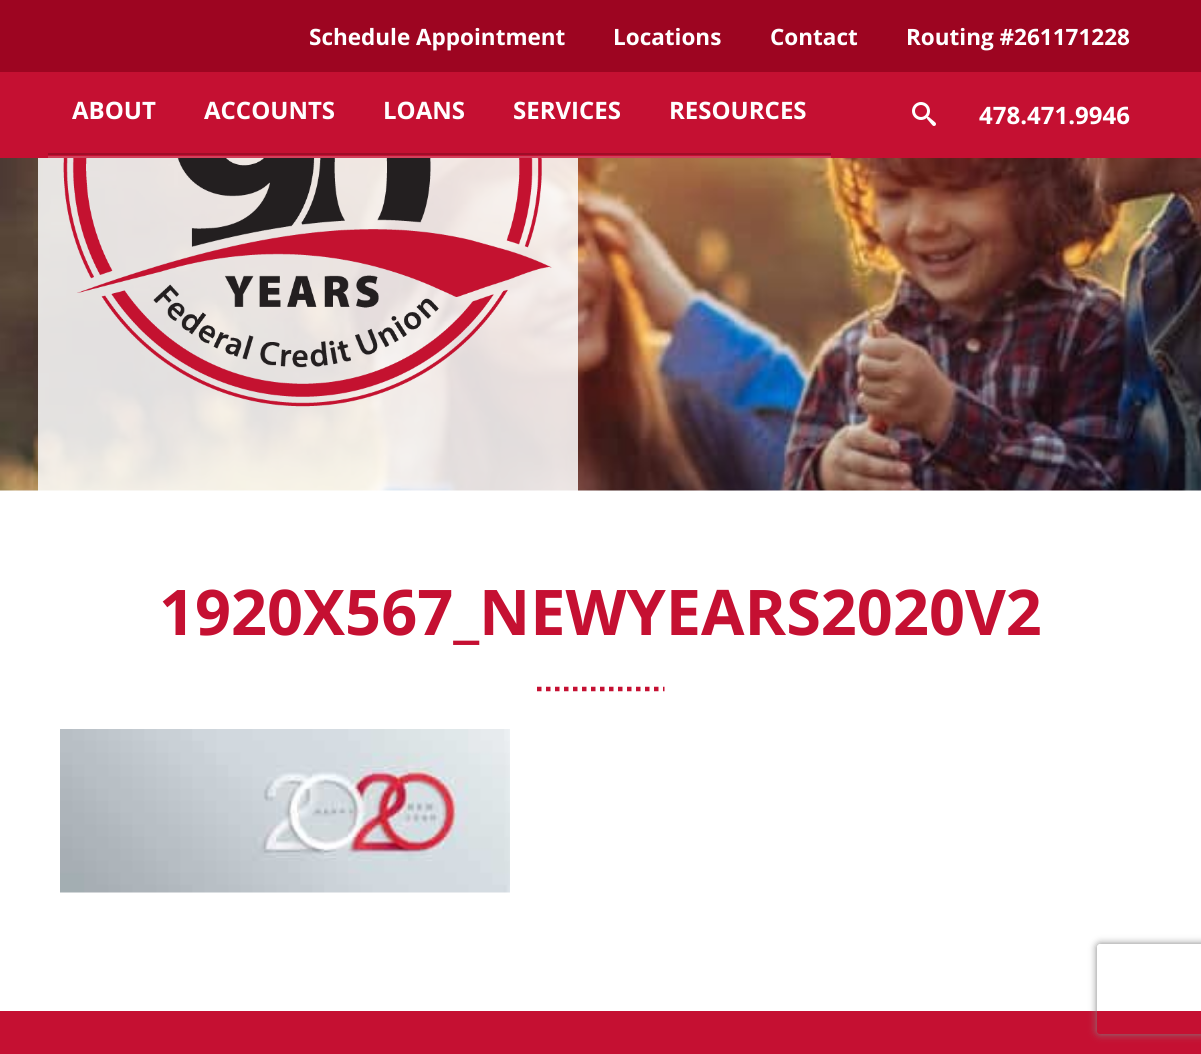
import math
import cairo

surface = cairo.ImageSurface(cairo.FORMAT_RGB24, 1201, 1054)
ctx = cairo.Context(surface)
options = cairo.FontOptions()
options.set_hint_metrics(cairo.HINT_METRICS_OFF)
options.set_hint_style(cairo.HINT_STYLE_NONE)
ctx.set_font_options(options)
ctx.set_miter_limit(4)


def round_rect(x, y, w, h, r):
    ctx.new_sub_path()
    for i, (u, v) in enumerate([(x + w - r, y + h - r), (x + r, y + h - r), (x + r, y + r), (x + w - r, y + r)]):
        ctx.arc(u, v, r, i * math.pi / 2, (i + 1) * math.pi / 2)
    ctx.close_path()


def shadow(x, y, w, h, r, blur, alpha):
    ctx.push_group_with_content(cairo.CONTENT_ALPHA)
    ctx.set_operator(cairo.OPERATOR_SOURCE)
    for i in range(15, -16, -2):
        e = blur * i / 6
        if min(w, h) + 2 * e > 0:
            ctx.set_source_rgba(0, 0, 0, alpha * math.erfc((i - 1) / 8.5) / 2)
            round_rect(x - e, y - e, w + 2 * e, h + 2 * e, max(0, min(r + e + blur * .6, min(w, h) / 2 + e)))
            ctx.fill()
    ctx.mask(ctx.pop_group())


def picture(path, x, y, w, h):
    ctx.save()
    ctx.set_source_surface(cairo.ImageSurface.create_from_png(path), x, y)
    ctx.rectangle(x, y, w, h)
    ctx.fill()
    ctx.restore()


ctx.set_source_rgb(1, 1, 1)
ctx.paint()
picture("img1.png", 0, 158, 1201, 333)
ctx.set_source_rgb(0.616, 0.02, 0.129)
ctx.rectangle(0, 0, 1201, 72)
ctx.fill()
ctx.select_font_face("Open Sans", cairo.FONT_SLANT_NORMAL, cairo.FONT_WEIGHT_BOLD)
ctx.set_font_size(22.5)
ctx.set_source_rgb(1, 1, 1)
ctx.move_to(309, 45)
ctx.show_text("Schedule Appointment")
ctx.move_to(613, 45)
ctx.show_text("Locations")
ctx.move_to(770, 45)
ctx.show_text("Contact")
ctx.move_to(906, 45)
ctx.show_text("Routing #261171228")
ctx.set_source_rgb(0.773, 0.063, 0.196)
ctx.rectangle(0, 72, 1201, 86)
ctx.fill()
ctx.set_font_size(24)
ctx.set_source_rgb(1, 1, 1)
ctx.move_to(72, 119)
ctx.show_text("ABOUT")
ctx.move_to(204, 119)
ctx.show_text("ACCOUNTS")
ctx.move_to(383, 119)
ctx.show_text("LOANS")
ctx.move_to(513, 119)
ctx.show_text("SERVICES")
ctx.move_to(669, 119)
ctx.show_text("RESOURCES")
ctx.set_source_rgb(0.62, 0.051, 0.157)
ctx.rectangle(48, 153, 783, 2)
ctx.fill()
ctx.set_source_rgb(0.82, 0.251, 0.357)
ctx.rectangle(48, 156, 783, 2)
ctx.fill()
picture("img2.png", 912, 102, 24, 24)
ctx.set_source_rgb(1, 1, 1)
ctx.move_to(979, 124)
ctx.show_text("478.471.9946")
ctx.set_source_rgba(1, 1, 1, 0.85)
ctx.rectangle(38, 158, 540, 333)
ctx.fill()
picture("img3.png", 63, 158, 489, 249)
ctx.set_font_size(63)
ctx.set_source_rgb(0.773, 0.063, 0.196)
ctx.move_to(159, 635)
ctx.show_text("1920X567_NEWYEARS2020V2")
ctx.new_path()
ctx.move_to(537, 689)
ctx.line_to(664.5, 689)
ctx.set_line_width(4.5)
ctx.set_dash([4.5, 4.5])
ctx.stroke()
picture("img4.png", 60, 729, 450, 164)
ctx.rectangle(0, 1011, 1201, 43)
ctx.fill()
ctx.save()
ctx.set_fill_rule(cairo.FILL_RULE_EVEN_ODD)
ctx.new_path()
ctx.move_to(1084, 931)
ctx.line_to(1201, 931)
ctx.line_to(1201, 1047)
ctx.line_to(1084, 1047)
ctx.close_path()
ctx.move_to(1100, 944)
ctx.line_to(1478, 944)
ctx.curve_to(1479.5, 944, 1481, 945.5, 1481, 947)
ctx.line_to(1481, 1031)
ctx.curve_to(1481, 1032.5, 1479.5, 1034, 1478, 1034)
ctx.line_to(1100, 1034)
ctx.curve_to(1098.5, 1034, 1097, 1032.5, 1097, 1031)
ctx.line_to(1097, 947)
ctx.curve_to(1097, 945.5, 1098.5, 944, 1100, 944)
ctx.close_path()
ctx.clip()
ctx.set_source_rgb(0.502, 0.502, 0.502)
shadow(1097, 944, 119, 90, 3, 4, 1)
ctx.restore()
surface.write_to_png("page.png")
